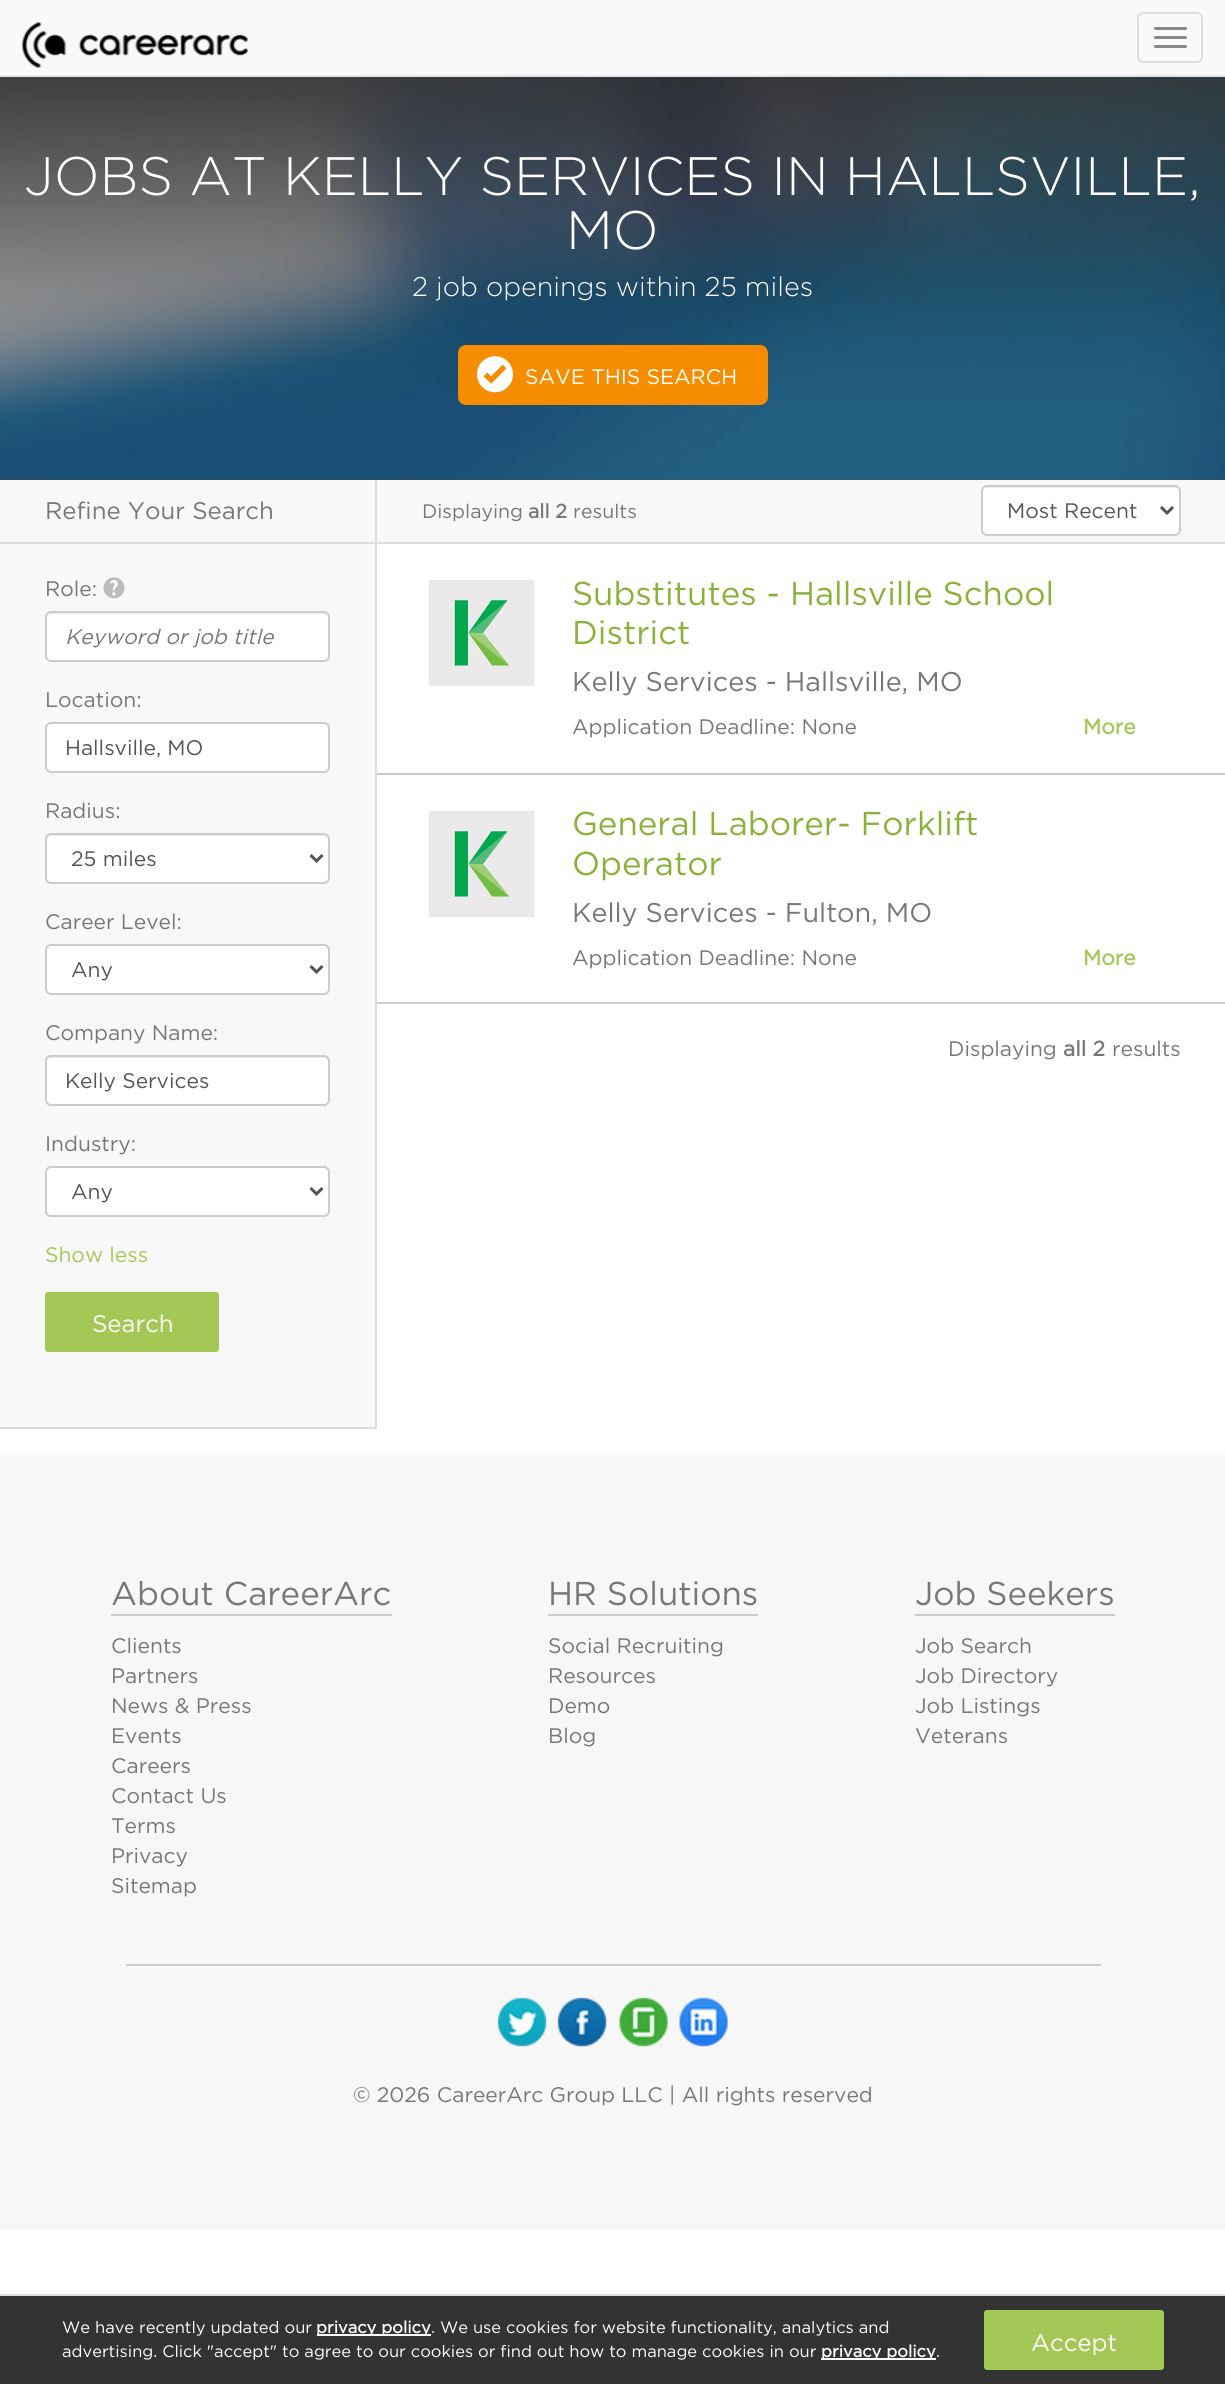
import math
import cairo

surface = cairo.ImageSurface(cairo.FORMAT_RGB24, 1225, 2384)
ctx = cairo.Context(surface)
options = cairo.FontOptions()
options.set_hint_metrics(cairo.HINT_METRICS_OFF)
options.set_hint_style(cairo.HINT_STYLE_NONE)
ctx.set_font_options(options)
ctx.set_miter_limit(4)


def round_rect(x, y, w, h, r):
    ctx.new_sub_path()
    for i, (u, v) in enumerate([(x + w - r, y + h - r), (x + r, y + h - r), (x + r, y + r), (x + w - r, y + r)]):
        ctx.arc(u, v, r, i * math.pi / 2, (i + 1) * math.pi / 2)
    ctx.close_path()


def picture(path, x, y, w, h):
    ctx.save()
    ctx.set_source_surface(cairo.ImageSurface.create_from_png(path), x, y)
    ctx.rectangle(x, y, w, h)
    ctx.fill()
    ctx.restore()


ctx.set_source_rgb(1, 1, 1)
ctx.paint()
ctx.set_source_rgb(0.973, 0.973, 0.973)
ctx.rectangle(0, 0, 1225, 75)
ctx.fill()
ctx.set_source_rgb(0.906, 0.906, 0.906)
ctx.rectangle(0, 75, 1225, 2)
ctx.fill()
picture("img1.png", 22, 22, 226, 46)
round_rect(1138, 13, 64, 49, 5)
ctx.set_source_rgb(0.867, 0.867, 0.867)
ctx.stroke()
ctx.set_source_rgb(0.533, 0.533, 0.533)
round_rect(1154, 27, 33, 3, 1.5)
ctx.fill()
round_rect(1154, 36, 33, 3, 1.5)
ctx.fill()
round_rect(1154, 45, 33, 3, 1.5)
ctx.fill()
picture("img2.png", 0, 77, 1225, 403)
ctx.select_font_face("Gotham Light")
ctx.set_font_size(54)
ctx.set_source_rgb(1, 1, 1)
ctx.move_to(24, 195)
ctx.show_text("JOBS AT KELLY SERVICES IN HALLSVILLE,")
ctx.move_to(566, 249)
ctx.show_text("MO")
ctx.set_font_size(27)
ctx.move_to(412, 296)
ctx.show_text("2 job openings within 25 miles")
ctx.set_source_rgb(0.961, 0.553, 0)
round_rect(458, 345, 310, 60, 8)
ctx.fill()
picture("img3.png", 477, 356, 36, 37)
ctx.select_font_face("Gotham")
ctx.set_font_size(21)
ctx.set_source_rgb(1, 1, 1)
ctx.move_to(525, 384)
ctx.show_text("SAVE THIS SEARCH")
ctx.set_source_rgb(0.969, 0.969, 0.969)
ctx.rectangle(0, 480, 375, 947)
ctx.fill()
ctx.set_source_rgb(0.867, 0.867, 0.867)
ctx.rectangle(375, 480, 2, 948)
ctx.fill()
ctx.rectangle(0, 1427, 377, 2)
ctx.fill()
ctx.rectangle(0, 542, 375, 2)
ctx.fill()
ctx.set_font_size(24)
ctx.set_source_rgb(0.467, 0.467, 0.467)
ctx.move_to(45, 519)
ctx.show_text("Refine Your Search")
ctx.set_font_size(21)
ctx.move_to(45, 596)
ctx.show_text("Role:")
picture("img4.png", 103, 577, 22, 22)
ctx.set_source_rgb(1, 1, 1)
round_rect(45, 611, 285, 51, 6)
ctx.fill()
ctx.set_source_rgb(0.925, 0.925, 0.925)
ctx.new_path()
ctx.move_to(51, 614)
ctx.line_to(324, 614)
ctx.curve_to(326, 614, 328, 616, 328, 618)
ctx.line_to(328, 658)
ctx.curve_to(329, 657, 329, 656, 329, 655)
ctx.line_to(329, 617)
ctx.curve_to(329, 614, 327, 612, 324, 612)
ctx.line_to(52, 612)
ctx.curve_to(50, 612, 48, 614, 47, 616)
ctx.curve_to(48, 615, 50, 614, 51, 614)
ctx.close_path()
ctx.fill()
round_rect(46, 612, 283, 49, 5)
ctx.set_source_rgb(0.8, 0.8, 0.8)
ctx.stroke()
ctx.select_font_face("Gotham", cairo.FONT_SLANT_ITALIC)
ctx.set_source_rgb(0.467, 0.467, 0.467)
ctx.move_to(65, 644)
ctx.show_text("Keyword or job title")
ctx.select_font_face("Gotham")
ctx.move_to(45, 707)
ctx.show_text("Location:")
ctx.set_source_rgb(1, 1, 1)
round_rect(45, 722, 285, 51, 6)
ctx.fill()
ctx.set_source_rgb(0.925, 0.925, 0.925)
ctx.new_path()
ctx.move_to(51, 724)
ctx.line_to(324, 724)
ctx.curve_to(326, 724, 328, 727, 328, 729)
ctx.line_to(328, 769)
ctx.curve_to(329, 768, 329, 767, 329, 766)
ctx.line_to(329, 728)
ctx.curve_to(329, 725, 327, 723, 324, 723)
ctx.line_to(52, 723)
ctx.curve_to(50, 723, 48, 724, 47, 726)
ctx.curve_to(48, 725, 50, 724, 51, 724)
ctx.close_path()
ctx.fill()
round_rect(46, 723, 283, 49, 5)
ctx.set_source_rgb(0.8, 0.8, 0.8)
ctx.stroke()
ctx.set_source_rgb(0.333, 0.333, 0.333)
ctx.move_to(65, 755)
ctx.show_text("Hallsville, MO")
ctx.set_source_rgb(0.467, 0.467, 0.467)
ctx.move_to(45, 818)
ctx.show_text("Radius:")
ctx.set_source_rgb(1, 1, 1)
round_rect(45, 833, 285, 51, 6)
ctx.fill()
ctx.set_source_rgb(0.925, 0.925, 0.925)
ctx.new_path()
ctx.move_to(51, 836)
ctx.line_to(324, 836)
ctx.curve_to(326, 836, 328, 838, 328, 840)
ctx.line_to(328, 880)
ctx.curve_to(329, 879, 329, 878, 329, 877)
ctx.line_to(329, 839)
ctx.curve_to(329, 836, 327, 834, 324, 834)
ctx.line_to(52, 834)
ctx.curve_to(50, 834, 48, 836, 47, 838)
ctx.curve_to(48, 837, 50, 836, 51, 836)
ctx.close_path()
ctx.fill()
round_rect(46, 834, 283, 49, 5)
ctx.set_source_rgb(0.8, 0.8, 0.8)
ctx.stroke()
ctx.new_path()
ctx.move_to(310.5, 855)
ctx.line_to(316.5, 861)
ctx.line_to(322.5, 855)
ctx.set_source_rgb(0.333, 0.333, 0.333)
ctx.set_line_width(3)
ctx.stroke()
ctx.move_to(71, 866)
ctx.show_text("25 miles")
ctx.set_source_rgb(0.467, 0.467, 0.467)
ctx.move_to(45, 929)
ctx.show_text("Career Level:")
ctx.set_source_rgb(1, 1, 1)
round_rect(45, 944, 285, 51, 6)
ctx.fill()
ctx.set_source_rgb(0.925, 0.925, 0.925)
ctx.new_path()
ctx.move_to(51, 946)
ctx.line_to(324, 946)
ctx.curve_to(326, 946, 328, 949, 328, 951)
ctx.line_to(328, 991)
ctx.curve_to(329, 990, 329, 989, 329, 988)
ctx.line_to(329, 950)
ctx.curve_to(329, 947, 327, 945, 324, 945)
ctx.line_to(52, 945)
ctx.curve_to(50, 945, 48, 946, 47, 948)
ctx.curve_to(48, 947, 50, 946, 51, 946)
ctx.close_path()
ctx.fill()
round_rect(46, 945, 283, 49, 5)
ctx.set_source_rgb(0.8, 0.8, 0.8)
ctx.set_line_width(2)
ctx.stroke()
ctx.new_path()
ctx.move_to(310.5, 966)
ctx.line_to(316.5, 972)
ctx.line_to(322.5, 966)
ctx.set_source_rgb(0.333, 0.333, 0.333)
ctx.set_line_width(3)
ctx.stroke()
ctx.move_to(71, 977)
ctx.show_text("Any")
ctx.set_source_rgb(0.467, 0.467, 0.467)
ctx.move_to(45, 1040)
ctx.show_text("Company Name:")
ctx.set_source_rgb(1, 1, 1)
round_rect(45, 1055, 285, 51, 6)
ctx.fill()
ctx.set_source_rgb(0.925, 0.925, 0.925)
ctx.new_path()
ctx.move_to(51, 1058)
ctx.line_to(324, 1058)
ctx.curve_to(326, 1058, 328, 1060, 328, 1062)
ctx.line_to(328, 1102)
ctx.curve_to(329, 1101, 329, 1100, 329, 1099)
ctx.line_to(329, 1061)
ctx.curve_to(329, 1058, 327, 1056, 324, 1056)
ctx.line_to(52, 1056)
ctx.curve_to(50, 1056, 48, 1058, 47, 1060)
ctx.curve_to(48, 1059, 50, 1058, 51, 1058)
ctx.close_path()
ctx.fill()
round_rect(46, 1056, 283, 49, 5)
ctx.set_source_rgb(0.8, 0.8, 0.8)
ctx.set_line_width(2)
ctx.stroke()
ctx.set_source_rgb(0.333, 0.333, 0.333)
ctx.move_to(65, 1088)
ctx.show_text("Kelly Services")
ctx.set_source_rgb(0.467, 0.467, 0.467)
ctx.move_to(45, 1151)
ctx.show_text("Industry:")
ctx.set_source_rgb(1, 1, 1)
round_rect(45, 1166, 285, 51, 6)
ctx.fill()
ctx.set_source_rgb(0.925, 0.925, 0.925)
ctx.new_path()
ctx.move_to(51, 1168)
ctx.line_to(324, 1168)
ctx.curve_to(326, 1168, 328, 1171, 328, 1173)
ctx.line_to(328, 1213)
ctx.curve_to(329, 1212, 329, 1211, 329, 1210)
ctx.line_to(329, 1172)
ctx.curve_to(329, 1169, 327, 1167, 324, 1167)
ctx.line_to(52, 1167)
ctx.curve_to(50, 1167, 48, 1168, 47, 1170)
ctx.curve_to(48, 1169, 50, 1168, 51, 1168)
ctx.close_path()
ctx.fill()
round_rect(46, 1167, 283, 49, 5)
ctx.set_source_rgb(0.8, 0.8, 0.8)
ctx.stroke()
ctx.new_path()
ctx.move_to(310.5, 1188)
ctx.line_to(316.5, 1194)
ctx.line_to(322.5, 1188)
ctx.set_source_rgb(0.333, 0.333, 0.333)
ctx.set_line_width(3)
ctx.stroke()
ctx.move_to(71, 1199)
ctx.show_text("Any")
ctx.set_source_rgb(0.639, 0.784, 0.337)
ctx.move_to(45, 1262)
ctx.show_text("Show less")
round_rect(46, 1293, 172, 58, 2)
ctx.fill_preserve()
ctx.set_line_width(2)
ctx.stroke()
ctx.set_font_size(24)
ctx.set_source_rgb(1, 1, 1)
ctx.move_to(92, 1332)
ctx.show_text("Search")
ctx.set_source_rgb(0.969, 0.969, 0.969)
ctx.rectangle(377, 480, 848, 62)
ctx.fill()
ctx.set_source_rgb(0.867, 0.867, 0.867)
ctx.rectangle(377, 542, 848, 2)
ctx.fill()
ctx.set_font_size(19.5)
ctx.set_source_rgb(0.467, 0.467, 0.467)
ctx.move_to(422, 518)
ctx.show_text("Displaying")
ctx.select_font_face("Gotham", cairo.FONT_SLANT_NORMAL, cairo.FONT_WEIGHT_BOLD)
ctx.move_to(528, 518)
ctx.show_text("all 2")
ctx.select_font_face("Gotham")
ctx.move_to(573, 518)
ctx.show_text("results")
ctx.set_source_rgb(1, 1, 1)
round_rect(981, 485, 200, 51, 6)
ctx.fill()
ctx.set_source_rgb(0.925, 0.925, 0.925)
ctx.new_path()
ctx.move_to(987, 488)
ctx.line_to(1174, 488)
ctx.curve_to(1177, 488, 1179, 490, 1179, 492)
ctx.line_to(1179, 491)
ctx.curve_to(1179, 488, 1177, 486, 1174, 486)
ctx.line_to(988, 486)
ctx.curve_to(986, 486, 984, 488, 983, 490)
ctx.curve_to(984, 489, 986, 488, 987, 488)
ctx.close_path()
ctx.fill()
round_rect(982, 486, 198, 49, 5)
ctx.set_source_rgb(0.8, 0.8, 0.8)
ctx.stroke()
ctx.new_path()
ctx.move_to(1161, 507)
ctx.line_to(1167, 513)
ctx.line_to(1173, 507)
ctx.set_source_rgb(0.333, 0.333, 0.333)
ctx.set_line_width(3)
ctx.stroke()
ctx.set_font_size(21)
ctx.move_to(1007, 518)
ctx.show_text("Most Recent")
ctx.set_source_rgb(0.8, 0.8, 0.8)
ctx.rectangle(377, 773, 848, 2)
ctx.fill()
picture("img5.png", 428, 580, 107, 106)
ctx.set_font_size(33)
ctx.set_source_rgb(0.541, 0.694, 0.227)
ctx.move_to(572, 605)
ctx.show_text("Substitutes - Hallsville School")
ctx.move_to(572, 644)
ctx.show_text("District")
ctx.set_font_size(27)
ctx.set_source_rgb(0.467, 0.467, 0.467)
ctx.move_to(572, 691)
ctx.show_text("Kelly Services - Hallsville, MO")
ctx.set_font_size(21)
ctx.move_to(572, 734)
ctx.show_text("Application Deadline: None")
ctx.select_font_face("Gotham", cairo.FONT_SLANT_NORMAL, cairo.FONT_WEIGHT_BOLD)
ctx.set_source_rgb(0.639, 0.784, 0.337)
ctx.move_to(1083, 734)
ctx.show_text("More")
ctx.set_source_rgb(0.8, 0.8, 0.8)
ctx.rectangle(377, 1002, 848, 2)
ctx.fill()
picture("img6.png", 428, 811, 107, 106)
ctx.select_font_face("Gotham")
ctx.set_font_size(33)
ctx.set_source_rgb(0.541, 0.694, 0.227)
ctx.move_to(572, 835)
ctx.show_text("General Laborer- Forklift")
ctx.move_to(572, 875)
ctx.show_text("Operator")
ctx.set_font_size(27)
ctx.set_source_rgb(0.467, 0.467, 0.467)
ctx.move_to(572, 922)
ctx.show_text("Kelly Services - Fulton, MO")
ctx.set_font_size(21)
ctx.move_to(572, 965)
ctx.show_text("Application Deadline: None")
ctx.select_font_face("Gotham", cairo.FONT_SLANT_NORMAL, cairo.FONT_WEIGHT_BOLD)
ctx.set_source_rgb(0.639, 0.784, 0.337)
ctx.move_to(1083, 965)
ctx.show_text("More")
ctx.select_font_face("Gotham")
ctx.set_source_rgb(0.467, 0.467, 0.467)
ctx.move_to(948, 1056)
ctx.show_text("Displaying")
ctx.select_font_face("Gotham", cairo.FONT_SLANT_NORMAL, cairo.FONT_WEIGHT_BOLD)
ctx.move_to(1063, 1056)
ctx.show_text("all 2")
ctx.select_font_face("Gotham")
ctx.move_to(1112, 1056)
ctx.show_text("results")
ctx.set_source_rgb(0.965, 0.965, 0.965)
ctx.rectangle(0, 1455, 1225, 774)
ctx.fill()
ctx.set_source_rgb(0.8, 0.8, 0.8)
ctx.rectangle(111, 1614, 281, 2)
ctx.fill()
ctx.set_font_size(33)
ctx.set_source_rgb(0.467, 0.467, 0.467)
ctx.move_to(111, 1605)
ctx.show_text("About CareerArc")
ctx.set_font_size(21)
ctx.move_to(111, 1653)
ctx.show_text("Clients")
ctx.move_to(111, 1683)
ctx.show_text("Partners")
ctx.move_to(111, 1713)
ctx.show_text("News & Press")
ctx.move_to(111, 1743)
ctx.show_text("Events")
ctx.move_to(111, 1773)
ctx.show_text("Careers")
ctx.move_to(111, 1803)
ctx.show_text("Contact Us")
ctx.move_to(111, 1833)
ctx.show_text("Terms")
ctx.move_to(111, 1863)
ctx.show_text("Privacy")
ctx.move_to(111, 1893)
ctx.show_text("Sitemap")
ctx.set_source_rgb(0.8, 0.8, 0.8)
ctx.rectangle(548, 1614, 210, 2)
ctx.fill()
ctx.set_font_size(33)
ctx.set_source_rgb(0.467, 0.467, 0.467)
ctx.move_to(548, 1605)
ctx.show_text("HR Solutions")
ctx.set_font_size(21)
ctx.move_to(548, 1653)
ctx.show_text("Social Recruiting")
ctx.move_to(548, 1683)
ctx.show_text("Resources")
ctx.move_to(548, 1713)
ctx.show_text("Demo")
ctx.move_to(548, 1743)
ctx.show_text("Blog")
ctx.set_source_rgb(0.8, 0.8, 0.8)
ctx.rectangle(915, 1614, 200, 2)
ctx.fill()
ctx.set_font_size(33)
ctx.set_source_rgb(0.467, 0.467, 0.467)
ctx.move_to(915, 1605)
ctx.show_text("Job Seekers")
ctx.set_font_size(21)
ctx.move_to(915, 1653)
ctx.show_text("Job Search")
ctx.move_to(915, 1683)
ctx.show_text("Job Directory")
ctx.move_to(915, 1713)
ctx.show_text("Job Listings")
ctx.move_to(915, 1743)
ctx.show_text("Veterans")
ctx.set_source_rgb(0.8, 0.8, 0.8)
ctx.rectangle(126, 1964, 975, 2)
ctx.fill()
picture("img7.png", 497, 1997, 50, 50)
picture("img8.png", 557, 1997, 50, 50)
picture("img9.png", 619, 1997, 49, 50)
picture("img10.png", 679, 1997, 49, 50)
ctx.set_source_rgb(0.467, 0.467, 0.467)
ctx.move_to(353, 2102)
ctx.show_text("© 2026 CareerArc Group LLC | All rights reserved")
ctx.set_source_rgb(0.2, 0.2, 0.2)
ctx.rectangle(0, 2296, 1225, 88)
ctx.fill()
ctx.set_source_rgb(0.867, 0.867, 0.867)
ctx.rectangle(0, 2294, 1225, 2)
ctx.fill()
ctx.set_font_size(16.5)
ctx.set_source_rgb(1, 1, 1)
ctx.move_to(62, 2333)
ctx.show_text("We have recently updated our")
ctx.rectangle(317, 2334, 114, 2)
ctx.fill()
ctx.select_font_face("Gotham", cairo.FONT_SLANT_NORMAL, cairo.FONT_WEIGHT_BOLD)
ctx.move_to(316, 2333)
ctx.show_text("privacy policy")
ctx.select_font_face("Gotham")
ctx.move_to(431, 2333)
ctx.show_text(". We use cookies for website functionality, analytics and")
ctx.move_to(62, 2357)
ctx.show_text("advertising. Click \"accept\" to agree to our cookies or find out how to manage cookies in our")
ctx.rectangle(821, 2358, 115, 2)
ctx.fill()
ctx.select_font_face("Gotham", cairo.FONT_SLANT_NORMAL, cairo.FONT_WEIGHT_BOLD)
ctx.move_to(821, 2357)
ctx.show_text("privacy policy")
ctx.select_font_face("Gotham")
ctx.move_to(936, 2357)
ctx.show_text(".")
ctx.set_source_rgb(0.639, 0.784, 0.337)
round_rect(985, 2311, 178, 58, 2)
ctx.fill_preserve()
ctx.set_line_width(2)
ctx.stroke()
ctx.set_font_size(24)
ctx.set_source_rgb(1, 1, 1)
ctx.move_to(1031, 2351)
ctx.show_text("Accept")
surface.write_to_png("page.png")
